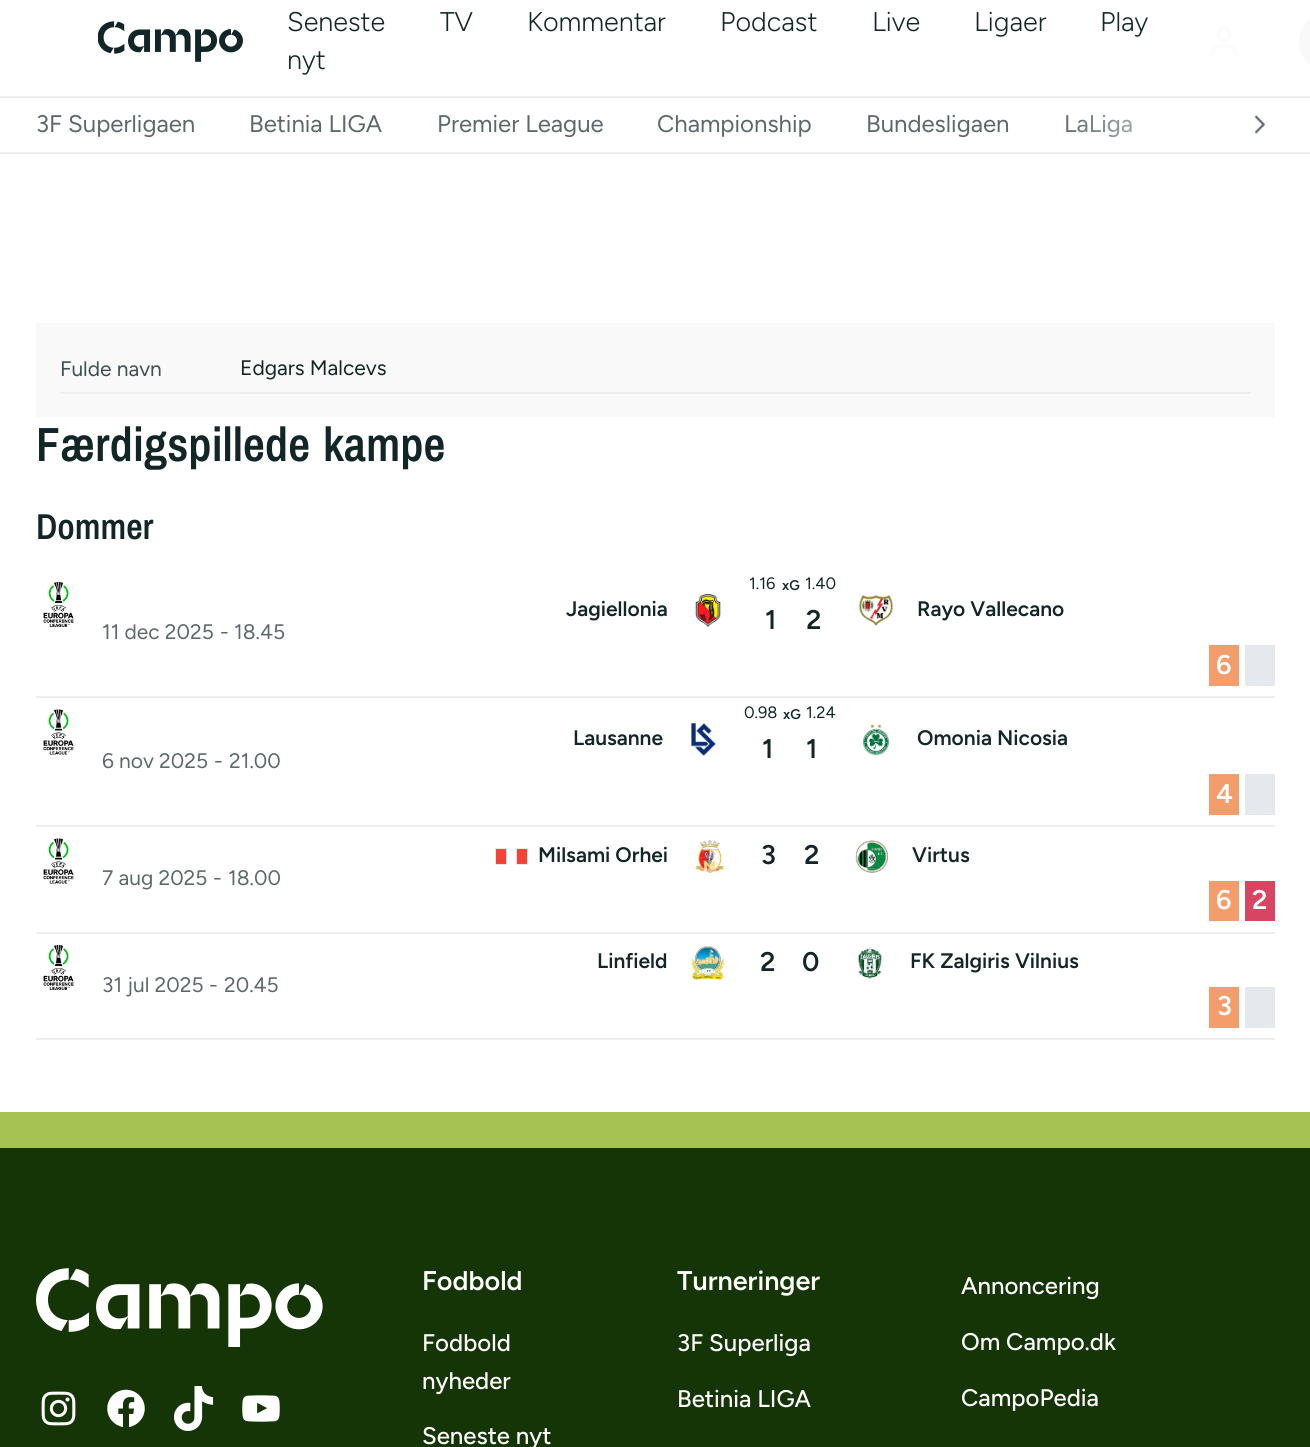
import math
import cairo

surface = cairo.ImageSurface(cairo.FORMAT_RGB24, 1310, 1447)
ctx = cairo.Context(surface)
options = cairo.FontOptions()
options.set_hint_metrics(cairo.HINT_METRICS_OFF)
options.set_hint_style(cairo.HINT_STYLE_NONE)
ctx.set_font_options(options)
ctx.set_miter_limit(4)


def spaced_text(x, y, s, letter, word):
    ctx.move_to(x, y)
    for ch in s:
        ctx.show_text(ch)
        ctx.rel_move_to(letter + word * (ch == ' '), 0)


def round_rect(x, y, w, h, r):
    ctx.new_sub_path()
    for i, (u, v) in enumerate([(x + w - r, y + h - r), (x + r, y + h - r), (x + r, y + r), (x + w - r, y + r)]):
        ctx.arc(u, v, r, i * math.pi / 2, (i + 1) * math.pi / 2)
    ctx.close_path()


def picture(path, x, y, w, h):
    ctx.save()
    ctx.set_source_surface(cairo.ImageSurface.create_from_png(path), x, y)
    ctx.rectangle(x, y, w, h)
    ctx.fill()
    ctx.restore()


ctx.set_source_rgb(1, 1, 1)
ctx.paint()
ctx.set_source_rgb(0.922, 0.933, 0.933)
ctx.rectangle(0, 152, 1310, 2)
ctx.fill()
picture("img1.png", 98, 21, 145, 41)
ctx.select_font_face("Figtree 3 Light")
ctx.set_font_size(27)
ctx.set_source_rgb(0.071, 0.145, 0.153)
ctx.move_to(287, 31)
ctx.show_text("Seneste")
ctx.move_to(287, 69)
ctx.show_text("nyt")
ctx.move_to(440, 31)
ctx.show_text("TV")
ctx.move_to(527, 31)
ctx.show_text("Kommentar")
ctx.move_to(720, 31)
ctx.show_text("Podcast")
ctx.move_to(872, 31)
ctx.show_text("Live")
ctx.move_to(974, 31)
ctx.show_text("Ligaer")
ctx.move_to(1100, 31)
ctx.show_text("Play")
ctx.new_path()
ctx.move_to(1236, 55.5)
ctx.line_to(1236, 51.5)
ctx.curve_to(1234.5, 45.5, 1228.5, 46.5, 1224, 46.5)
ctx.curve_to(1219.5, 46.5, 1213.5, 45.5, 1212, 51.5)
ctx.line_to(1212, 55.5)
ctx.set_source_rgb(0.98, 0.984, 0.984)
ctx.set_line_width(3)
ctx.set_line_cap(cairo.LINE_CAP_ROUND)
ctx.set_line_join(cairo.LINE_JOIN_ROUND)
ctx.stroke()
ctx.arc(1224, 34.5, 6, 0, 2 * math.pi)
ctx.set_line_cap(cairo.LINE_CAP_BUTT)
ctx.set_line_join(cairo.LINE_JOIN_MITER)
ctx.stroke()
ctx.set_source_rgb(0.976, 0.976, 0.976)
round_rect(1299, 12, 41, 60, 30)
ctx.fill()
ctx.set_source_rgb(0.922, 0.933, 0.933)
ctx.rectangle(0, 96, 1310, 2)
ctx.fill()
ctx.select_font_face("Figtree Light")
ctx.set_font_size(24)
ctx.set_source_rgb(0.361, 0.408, 0.416)
ctx.move_to(36, 132)
ctx.show_text("3F Superligaen")
ctx.move_to(249, 132)
ctx.show_text("Betinia LIGA")
ctx.move_to(437, 132)
ctx.show_text("Premier League")
ctx.move_to(657, 132)
ctx.show_text("Championship")
ctx.move_to(866, 132)
ctx.show_text("Bundesligaen")
ctx.move_to(1064, 132)
ctx.show_text("LaLiga")
gradient = cairo.LinearGradient(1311, 125, 1059, 125)
gradient.add_color_stop_rgba(0, 1, 1, 1, 1)
gradient.add_color_stop_rgba(0.26, 1, 1, 1, 1)
gradient.add_color_stop_rgba(1, 1, 1, 1, 0)
ctx.set_source(gradient)
ctx.rectangle(1066, 114, 66, 24)
ctx.fill()
picture("img2.png", 1254, 115, 11, 19)
ctx.set_source_rgb(0.976, 0.976, 0.976)
ctx.rectangle(36, 323, 1239, 94)
ctx.fill()
ctx.set_source_rgb(0.933, 0.941, 0.941)
ctx.rectangle(60, 392, 180, 2)
ctx.fill()
ctx.set_font_size(21)
ctx.set_source_rgb(0.251, 0.31, 0.318)
ctx.move_to(60, 376)
ctx.show_text("Fulde navn")
ctx.set_source_rgb(0.922, 0.933, 0.933)
ctx.rectangle(240, 392, 1011, 2)
ctx.fill()
ctx.set_source_rgb(0.071, 0.145, 0.153)
ctx.move_to(240, 375)
ctx.show_text("Edgars Malcevs")
ctx.select_font_face("Archivo Narrow SemiBold")
ctx.set_font_size(48)
spaced_text(36, 461, "Færdigspillede kampe", 0, 2)
ctx.set_font_size(36)
ctx.move_to(36, 539)
ctx.show_text("Dommer")
ctx.set_source_rgb(0.922, 0.933, 0.933)
ctx.rectangle(36, 696, 1239, 2)
ctx.fill()
picture("img3.png", 43, 582, 31, 45)
ctx.select_font_face("Figtree Light")
ctx.set_font_size(21)
ctx.set_source_rgb(0.361, 0.408, 0.416)
ctx.move_to(102, 639)
ctx.show_text("11 dec 2025")
ctx.move_to(220, 639)
ctx.show_text("-")
ctx.move_to(234, 639)
ctx.show_text("18.45")
ctx.select_font_face("Figtree SemiBold")
ctx.set_source_rgb(0.071, 0.145, 0.153)
ctx.move_to(566, 616)
ctx.show_text("Jagiellonia")
picture("img4.png", 695, 594, 26, 33)
ctx.select_font_face("Figtree Light")
ctx.set_font_size(16.5)
ctx.move_to(749, 589)
ctx.show_text("1.16")
ctx.select_font_face("Figtree SemiBold")
ctx.set_font_size(14)
ctx.move_to(782, 590)
ctx.show_text("xG")
ctx.select_font_face("Figtree Light")
ctx.set_font_size(16.5)
ctx.move_to(805, 589)
ctx.show_text("1.40")
ctx.select_font_face("Figtree SemiBold")
ctx.set_font_size(27)
ctx.move_to(765, 629)
ctx.show_text("1")
ctx.move_to(806, 629)
ctx.show_text("2")
picture("img5.png", 859, 594, 34, 32)
ctx.set_font_size(21)
ctx.move_to(917, 616)
ctx.show_text("Rayo Vallecano")
ctx.set_source_rgb(0.953, 0.616, 0.424)
ctx.rectangle(1209, 645, 30, 41)
ctx.fill()
ctx.set_font_size(27)
ctx.set_source_rgb(1, 1, 1)
ctx.move_to(1216, 674)
ctx.show_text("6")
ctx.set_source_rgb(0.898, 0.91, 0.922)
ctx.rectangle(1245, 645, 30, 41)
ctx.fill()
ctx.set_source_rgb(0.922, 0.933, 0.933)
ctx.rectangle(36, 825, 1239, 2)
ctx.fill()
picture("img6.png", 43, 709, 31, 46)
ctx.select_font_face("Figtree Light")
ctx.set_font_size(21)
ctx.set_source_rgb(0.361, 0.408, 0.416)
ctx.move_to(102, 768)
ctx.show_text("6 nov 2025")
ctx.move_to(214, 768)
ctx.show_text("-")
ctx.move_to(229, 768)
ctx.show_text("21.00")
ctx.select_font_face("Figtree SemiBold")
ctx.set_source_rgb(0.071, 0.145, 0.153)
ctx.move_to(573, 745)
ctx.show_text("Lausanne")
picture("img7.png", 691, 723, 25, 33)
ctx.select_font_face("Figtree Light")
ctx.set_font_size(16.5)
ctx.move_to(744, 718)
ctx.show_text("0.98")
ctx.select_font_face("Figtree SemiBold")
ctx.set_font_size(14)
ctx.move_to(783, 719)
ctx.show_text("xG")
ctx.select_font_face("Figtree Light")
ctx.set_font_size(16.5)
ctx.move_to(806, 718)
ctx.show_text("1.24")
ctx.select_font_face("Figtree SemiBold")
ctx.set_font_size(27)
ctx.move_to(762, 758)
ctx.show_text("1")
ctx.move_to(806, 758)
ctx.show_text("1")
picture("img8.png", 863, 724, 26, 32)
ctx.set_font_size(21)
ctx.move_to(917, 745)
ctx.show_text("Omonia Nicosia")
ctx.set_source_rgb(0.953, 0.616, 0.424)
ctx.rectangle(1209, 774, 30, 41)
ctx.fill()
ctx.set_font_size(27)
ctx.set_source_rgb(1, 1, 1)
ctx.move_to(1216, 803)
ctx.show_text("4")
ctx.set_source_rgb(0.898, 0.91, 0.922)
ctx.rectangle(1245, 774, 30, 41)
ctx.fill()
ctx.set_source_rgb(0.922, 0.933, 0.933)
ctx.rectangle(36, 932, 1239, 2)
ctx.fill()
picture("img6.png", 43, 838, 31, 46)
ctx.select_font_face("Figtree Light")
ctx.set_font_size(21)
ctx.set_source_rgb(0.361, 0.408, 0.416)
ctx.move_to(102, 885)
ctx.show_text("7 aug 2025")
ctx.move_to(213, 885)
ctx.show_text("-")
ctx.move_to(228, 885)
ctx.show_text("18.00")
picture("img9.png", 495, 848, 12, 17)
picture("img9.png", 516, 848, 12, 17)
ctx.select_font_face("Figtree SemiBold")
ctx.set_source_rgb(0.071, 0.145, 0.153)
ctx.move_to(538, 862)
ctx.show_text("Milsami Orhei")
picture("img10.png", 695, 840, 29, 33)
ctx.set_font_size(27)
ctx.move_to(761, 864)
ctx.show_text("3")
ctx.move_to(804, 864)
ctx.show_text("2")
picture("img11.png", 855, 840, 33, 33)
ctx.set_font_size(21)
ctx.move_to(912, 862)
ctx.show_text("Virtus")
ctx.set_source_rgb(0.953, 0.616, 0.424)
ctx.rectangle(1209, 881, 30, 40)
ctx.fill()
ctx.set_font_size(27)
ctx.set_source_rgb(1, 1, 1)
ctx.move_to(1216, 909)
ctx.show_text("6")
ctx.set_source_rgb(0.843, 0.271, 0.384)
ctx.rectangle(1245, 881, 30, 40)
ctx.fill()
ctx.set_source_rgb(1, 1, 1)
ctx.move_to(1252, 909)
ctx.show_text("2")
ctx.set_source_rgb(0.922, 0.933, 0.933)
ctx.rectangle(36, 1038, 1239, 2)
ctx.fill()
picture("img3.png", 43, 945, 31, 45)
ctx.select_font_face("Figtree Light")
ctx.set_font_size(21)
ctx.set_source_rgb(0.361, 0.408, 0.416)
ctx.move_to(102, 992)
ctx.show_text("31 jul 2025")
ctx.move_to(209, 992)
ctx.show_text("-")
ctx.move_to(224, 992)
ctx.show_text("20.45")
ctx.select_font_face("Figtree SemiBold")
ctx.set_source_rgb(0.071, 0.145, 0.153)
ctx.move_to(597, 968)
ctx.show_text("Linfield")
picture("img12.png", 691, 946, 34, 34)
ctx.set_font_size(27)
ctx.move_to(760, 971)
ctx.show_text("2")
ctx.move_to(802, 971)
ctx.show_text("0")
picture("img13.png", 858, 947, 24, 32)
ctx.set_font_size(21)
ctx.move_to(910, 968)
ctx.show_text("FK Zalgiris Vilnius")
ctx.set_source_rgb(0.953, 0.616, 0.424)
ctx.rectangle(1209, 987, 30, 41)
ctx.fill()
ctx.set_font_size(27)
ctx.set_source_rgb(1, 1, 1)
ctx.move_to(1217, 1015)
ctx.show_text("3")
ctx.set_source_rgb(0.898, 0.91, 0.922)
ctx.rectangle(1245, 987, 30, 41)
ctx.fill()
ctx.set_source_rgb(0.086, 0.208, 0.024)
ctx.rectangle(0, 1148, 1310, 299)
ctx.fill()
ctx.set_source_rgb(0.651, 0.761, 0.325)
ctx.rectangle(0, 1112, 1310, 36)
ctx.fill()
picture("img14.png", 36, 1268, 287, 79)
picture("img15.png", 41, 1391, 35, 35)
picture("img16.png", 107, 1389, 38, 38)
picture("img17.png", 174, 1386, 40, 45)
picture("img18.png", 242, 1395, 38, 27)
ctx.set_source_rgb(1, 1, 1)
ctx.move_to(422, 1290)
ctx.show_text("Fodbold")
ctx.select_font_face("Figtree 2 Light")
ctx.set_font_size(24)
ctx.move_to(422, 1351)
ctx.show_text("Fodbold")
ctx.move_to(422, 1389)
ctx.show_text("nyheder")
ctx.move_to(422, 1444)
ctx.show_text("Seneste nyt")
ctx.select_font_face("Figtree SemiBold")
ctx.set_font_size(27)
ctx.move_to(677, 1290)
ctx.show_text("Turneringer")
ctx.select_font_face("Figtree 2 Light")
ctx.set_font_size(24)
ctx.move_to(677, 1351)
ctx.show_text("3F Superliga")
ctx.move_to(677, 1407)
ctx.show_text("Betinia LIGA")
ctx.move_to(961, 1294)
ctx.show_text("Annoncering")
ctx.move_to(961, 1350)
ctx.show_text("Om Campo.dk")
ctx.move_to(961, 1406)
ctx.show_text("CampoPedia")
surface.write_to_png("page.png")
